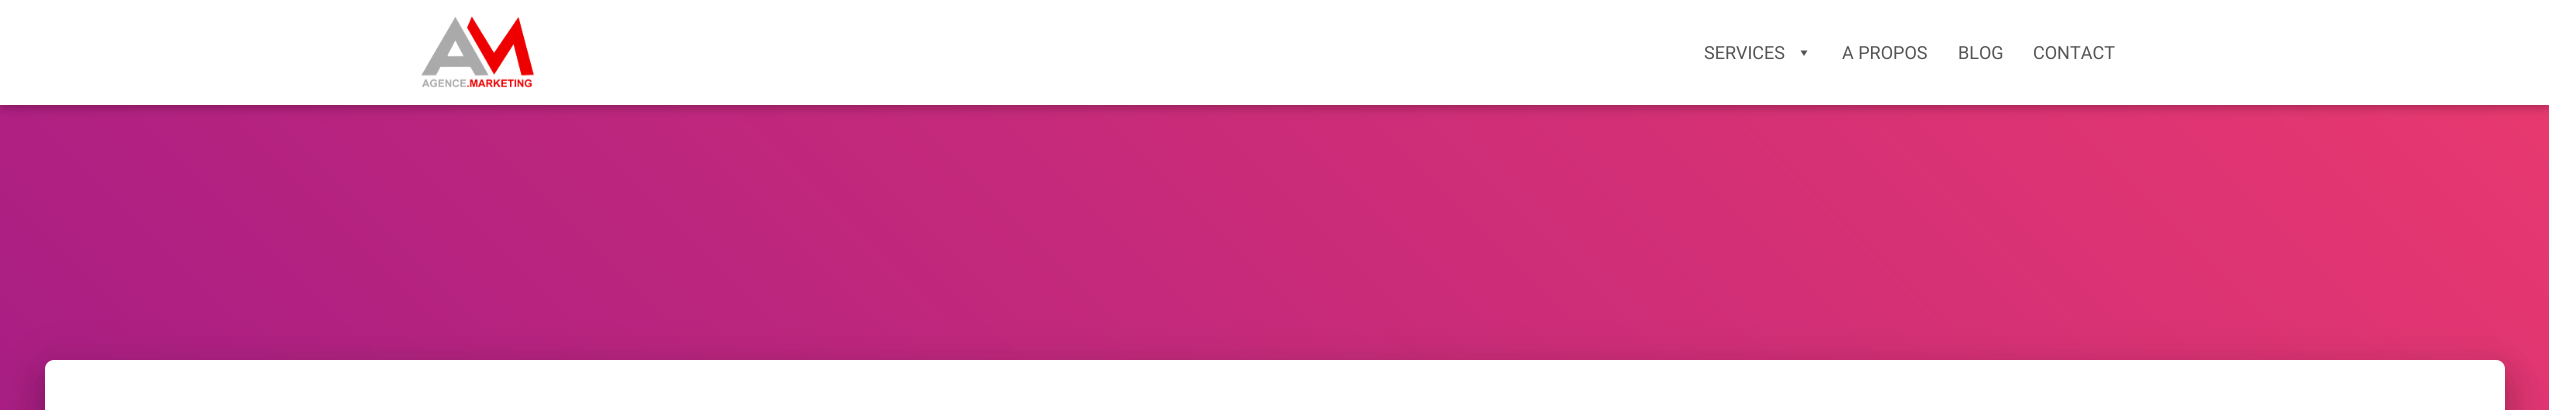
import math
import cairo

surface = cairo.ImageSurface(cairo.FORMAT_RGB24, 2549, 410)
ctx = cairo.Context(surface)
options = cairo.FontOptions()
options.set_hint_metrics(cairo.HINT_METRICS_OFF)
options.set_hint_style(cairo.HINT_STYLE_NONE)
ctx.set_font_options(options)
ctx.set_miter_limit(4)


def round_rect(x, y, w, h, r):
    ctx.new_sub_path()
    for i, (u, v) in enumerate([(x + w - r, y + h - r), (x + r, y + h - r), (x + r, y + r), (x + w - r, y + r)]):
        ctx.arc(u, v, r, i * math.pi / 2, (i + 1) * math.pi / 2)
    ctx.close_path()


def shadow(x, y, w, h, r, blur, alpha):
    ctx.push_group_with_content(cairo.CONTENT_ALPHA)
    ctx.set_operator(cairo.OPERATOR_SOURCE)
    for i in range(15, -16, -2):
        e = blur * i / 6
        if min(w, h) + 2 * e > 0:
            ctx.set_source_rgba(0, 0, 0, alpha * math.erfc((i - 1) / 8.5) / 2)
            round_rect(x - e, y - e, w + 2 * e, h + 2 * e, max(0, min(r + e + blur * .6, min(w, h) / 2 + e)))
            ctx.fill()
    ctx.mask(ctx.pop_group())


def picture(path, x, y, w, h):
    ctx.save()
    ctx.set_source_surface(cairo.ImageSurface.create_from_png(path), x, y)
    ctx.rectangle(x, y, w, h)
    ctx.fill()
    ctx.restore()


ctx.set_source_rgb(1, 1, 1)
ctx.paint()
gradient = cairo.LinearGradient(525, 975, 2025, -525)
gradient.add_color_stop_rgba(0, 0.659, 0.114, 0.518, 1)
gradient.add_color_stop_rgba(1, 0.918, 0.224, 0.435, 1)
ctx.set_source(gradient)
ctx.rectangle(0, 105, 2549, 305)
ctx.fill()
ctx.set_source_rgb(0, 0, 0)
shadow(3, 9, 2544, 99, 0, 4, 0.1)
shadow(0, 2, 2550, 105, 0, 7.5, 0.12)
shadow(9, 11, 2532, 87, 0, 7.5, 0.42)
ctx.set_source_rgb(1, 1, 1)
ctx.rectangle(0, 0, 2549, 105)
ctx.fill()
picture("img1.png", 421, 16, 113, 72)
ctx.select_font_face("Roboto")
ctx.set_font_size(18)
ctx.set_source_rgb(0.333, 0.333, 0.333)
ctx.move_to(1704, 59)
ctx.show_text("SERVICES")
ctx.new_path()
ctx.move_to(1807.5, 50.5)
ctx.line_to(1804, 56)
ctx.line_to(1800.5, 50.5)
ctx.close_path()
ctx.fill()
ctx.move_to(1842, 59)
ctx.show_text("A PROPOS")
ctx.move_to(1958, 59)
ctx.show_text("BLOG")
ctx.move_to(2033, 59)
ctx.show_text("CONTACT")
ctx.set_source_rgb(0, 0, 0)
shadow(53, 380, 2445, 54, 1.5, 7.5, 0.2)
shadow(38, 362, 2475, 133, 17, 22.5, 0.12)
shadow(42, 381, 2466, 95, 12, 18, 0.14)
ctx.set_source_rgb(1, 1, 1)
ctx.new_path()
ctx.move_to(54, 360)
ctx.line_to(2496, 360)
ctx.curve_to(2501, 360, 2505, 364, 2505, 369)
ctx.line_to(2505, 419)
ctx.line_to(45, 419)
ctx.line_to(45, 369)
ctx.curve_to(45, 364, 49, 360, 54, 360)
ctx.close_path()
ctx.fill()
surface.write_to_png("page.png")
